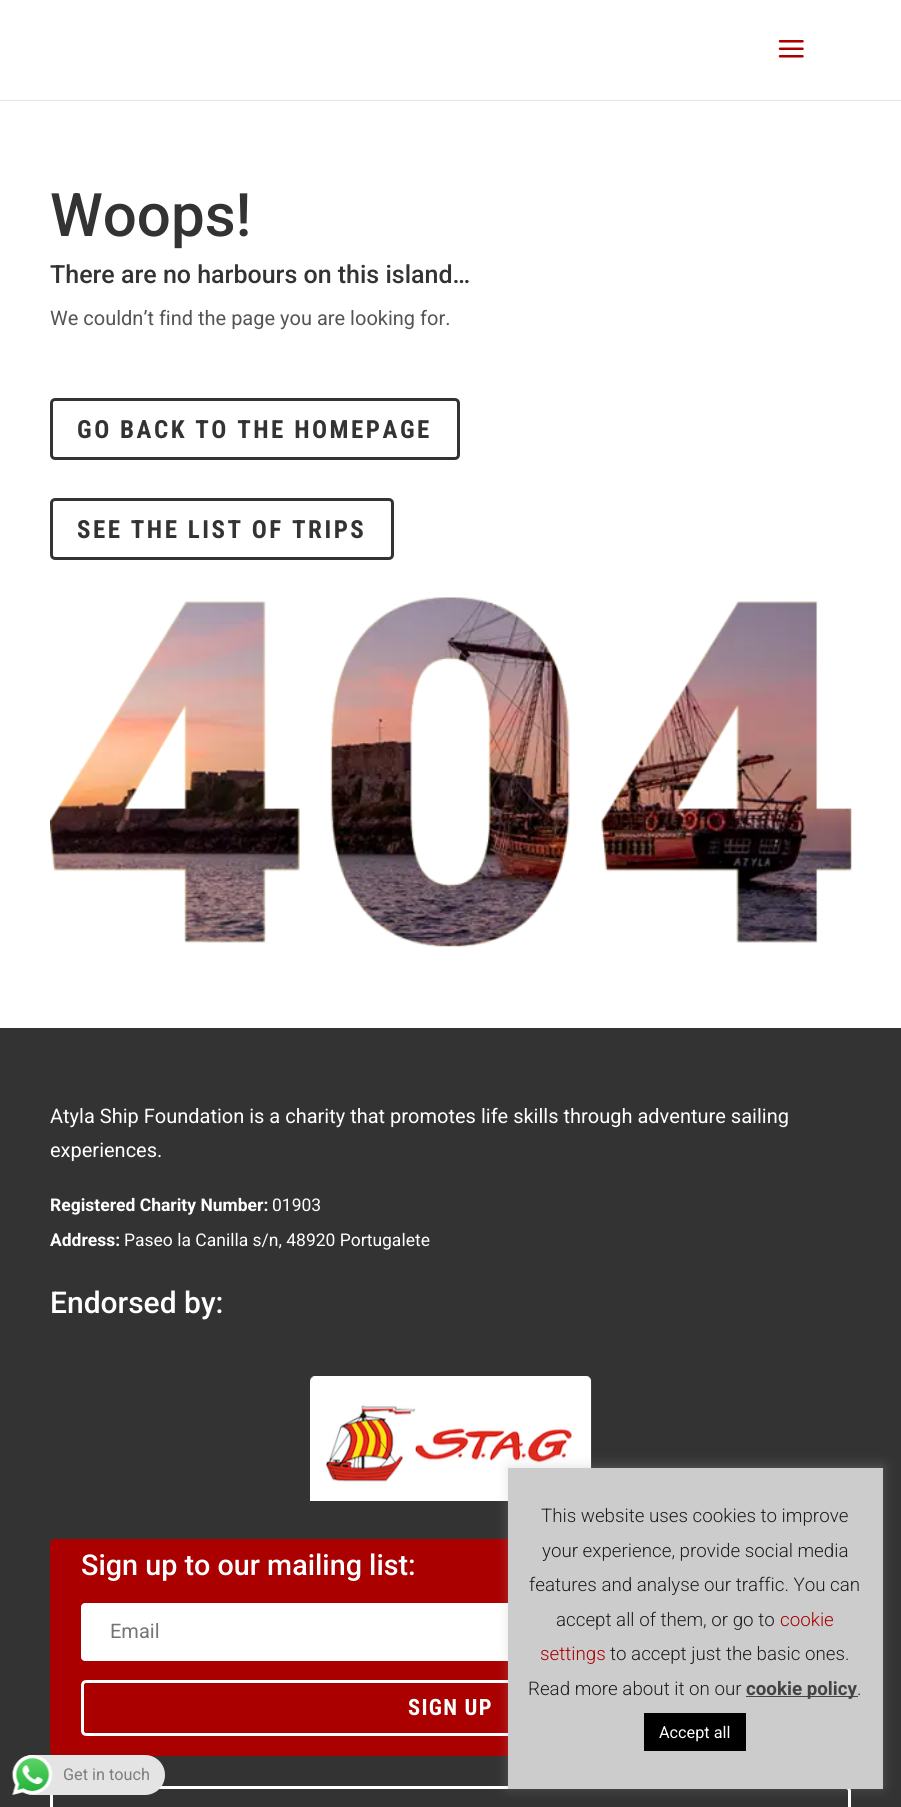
import math
import cairo

surface = cairo.ImageSurface(cairo.FORMAT_RGB24, 901, 1807)
ctx = cairo.Context(surface)
options = cairo.FontOptions()
options.set_hint_metrics(cairo.HINT_METRICS_OFF)
options.set_hint_style(cairo.HINT_STYLE_NONE)
ctx.set_font_options(options)
ctx.set_miter_limit(4)


def spaced_text(x, y, s, letter, word):
    ctx.move_to(x, y)
    for ch in s:
        ctx.show_text(ch)
        ctx.rel_move_to(letter + word * (ch == ' '), 0)


def round_rect(x, y, w, h, r):
    ctx.new_sub_path()
    for i, (u, v) in enumerate([(x + w - r, y + h - r), (x + r, y + h - r), (x + r, y + r), (x + w - r, y + r)]):
        ctx.arc(u, v, r, i * math.pi / 2, (i + 1) * math.pi / 2)
    ctx.close_path()


def shadow(x, y, w, h, r, blur, alpha):
    ctx.push_group_with_content(cairo.CONTENT_ALPHA)
    ctx.set_operator(cairo.OPERATOR_SOURCE)
    for i in range(15, -16, -2):
        e = blur * i / 6
        if min(w, h) + 2 * e > 0:
            ctx.set_source_rgba(0, 0, 0, alpha * math.erfc((i - 1) / 8.5) / 2)
            round_rect(x - e, y - e, w + 2 * e, h + 2 * e, max(0, min(r + e + blur * .6, min(w, h) / 2 + e)))
            ctx.fill()
    ctx.mask(ctx.pop_group())


def picture(path, x, y, w, h):
    ctx.save()
    ctx.set_source_surface(cairo.ImageSurface.create_from_png(path), x, y)
    ctx.rectangle(x, y, w, h)
    ctx.fill()
    ctx.restore()


ctx.set_source_rgb(1, 1, 1)
ctx.paint()
ctx.set_source_rgb(0.902, 0.902, 0.902)
ctx.rectangle(0, 100, 901, 1)
ctx.fill()
picture("img1.png", 778, 40, 26, 18)
ctx.select_font_face("Roboto Medium")
ctx.set_font_size(60)
ctx.set_source_rgb(0.2, 0.2, 0.2)
ctx.move_to(50, 236)
ctx.show_text("Woops!")
ctx.set_font_size(25)
ctx.move_to(50, 283)
ctx.show_text("There are no harbours on this island…")
ctx.select_font_face("Roboto")
ctx.set_font_size(20)
ctx.set_source_rgb(0.333, 0.333, 0.333)
ctx.move_to(50, 325)
ctx.show_text("We couldn’t find the page you are looking for.")
round_rect(51.5, 399.5, 407, 59, 3.5)
ctx.set_source_rgb(0.2, 0.2, 0.2)
ctx.set_line_width(3)
ctx.stroke()
ctx.select_font_face("Roboto Condensed", cairo.FONT_SLANT_NORMAL, cairo.FONT_WEIGHT_BOLD)
ctx.set_font_size(25)
spaced_text(77, 438, "GO BACK TO THE HOMEPAGE", 2.5, 0)
round_rect(51.5, 499.5, 341, 59, 3.5)
ctx.stroke()
spaced_text(77, 538, "SEE THE LIST OF TRIPS", 2.5, 0)
picture("img2.png", 50, 597, 802, 350)
ctx.rectangle(0, 1028, 901, 779)
ctx.fill()
ctx.select_font_face("Roboto")
ctx.set_font_size(20)
ctx.set_source_rgb(1, 1, 1)
ctx.move_to(50, 1123)
ctx.show_text("Atyla Ship Foundation is a charity that promotes life skills through adventure sailing")
ctx.move_to(50, 1157)
ctx.show_text("experiences.")
ctx.select_font_face("Roboto", cairo.FONT_SLANT_NORMAL, cairo.FONT_WEIGHT_BOLD)
ctx.set_font_size(17.5)
ctx.move_to(50, 1211)
ctx.show_text("Registered Charity Number:")
ctx.select_font_face("Roboto")
ctx.move_to(272, 1211)
ctx.show_text("01903")
ctx.select_font_face("Roboto", cairo.FONT_SLANT_NORMAL, cairo.FONT_WEIGHT_BOLD)
ctx.move_to(50, 1246)
ctx.show_text("Address:")
ctx.select_font_face("Roboto")
ctx.move_to(124, 1246)
ctx.show_text("Paseo la Canilla s/n, 48920 Portugalete")
ctx.select_font_face("Roboto Medium")
ctx.set_font_size(30)
ctx.move_to(50, 1313)
ctx.show_text("Endorsed by:")
picture("img3.png", 310, 1376, 282, 125)
ctx.set_source_rgb(0.667, 0, 0)
round_rect(50, 1539, 801, 217, 5)
ctx.fill()
ctx.set_font_size(28.75)
ctx.set_source_rgb(1, 1, 1)
ctx.move_to(81, 1575)
ctx.show_text("Sign up to our mailing list:")
round_rect(81, 1603, 739, 58, 4)
ctx.fill()
ctx.select_font_face("Roboto")
ctx.set_font_size(20)
ctx.set_source_rgb(0.459, 0.459, 0.459)
ctx.move_to(110, 1638)
ctx.show_text("Email")
round_rect(82.5, 1681.5, 736, 53, 3.5)
ctx.set_source_rgb(1, 1, 1)
ctx.stroke()
ctx.select_font_face("Roboto Condensed", cairo.FONT_SLANT_NORMAL, cairo.FONT_WEIGHT_BOLD)
ctx.set_font_size(22.5)
spaced_text(408, 1715, "SIGN UP", 1.25, 0)
round_rect(51.5, 1787.5, 798, 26, 3.5)
ctx.stroke()
ctx.set_source_rgb(0.675, 0.671, 0.671)
shadow(508, 1466, 375, 322, 0, 6, 0.3)
ctx.set_source_rgb(0.8, 0.8, 0.8)
ctx.rectangle(508, 1468, 375, 321)
ctx.fill()
ctx.select_font_face("Roboto Light")
ctx.set_font_size(18.75)
ctx.set_source_rgb(0.118, 0.118, 0.118)
ctx.move_to(541, 1522)
ctx.show_text("This website uses cookies to improve")
ctx.move_to(542, 1557)
ctx.show_text("your experience, provide social media")
ctx.move_to(529, 1591)
ctx.show_text("features and analyse our traffic. You can")
ctx.move_to(556, 1626)
ctx.show_text("accept all of them, or go to")
ctx.set_source_rgb(0.667, 0, 0)
ctx.move_to(780, 1626)
ctx.show_text("cookie")
ctx.move_to(540, 1660)
ctx.show_text("settings")
ctx.set_source_rgb(0.118, 0.118, 0.118)
ctx.move_to(610, 1660)
ctx.show_text("to accept just the basic ones.")
ctx.move_to(528, 1695)
ctx.show_text("Read more about it on our")
ctx.set_source_rgb(0.267, 0.267, 0.267)
ctx.rectangle(746, 1696, 112, 1)
ctx.fill()
ctx.select_font_face("Roboto", cairo.FONT_SLANT_NORMAL, cairo.FONT_WEIGHT_BOLD)
ctx.move_to(746, 1695)
ctx.show_text("cookie policy")
ctx.select_font_face("Roboto Light")
ctx.set_source_rgb(0.118, 0.118, 0.118)
ctx.move_to(857, 1695)
ctx.show_text(".")
ctx.set_source_rgb(0, 0, 0)
ctx.rectangle(644, 1713, 102, 38)
ctx.fill()
ctx.select_font_face("Roboto")
ctx.set_font_size(16.25)
ctx.set_source_rgb(1, 1, 1)
ctx.move_to(659, 1738)
ctx.show_text("Accept all")
ctx.set_source_rgb(0.894, 0.894, 0.894)
round_rect(13, 1755, 152, 40, 20)
ctx.fill()
picture("img4.png", 12, 1755, 41, 40)
ctx.set_source_rgb(0.498, 0.49, 0.49)
ctx.move_to(63, 1780)
ctx.show_text("Get in touch")
surface.write_to_png("page.png")
